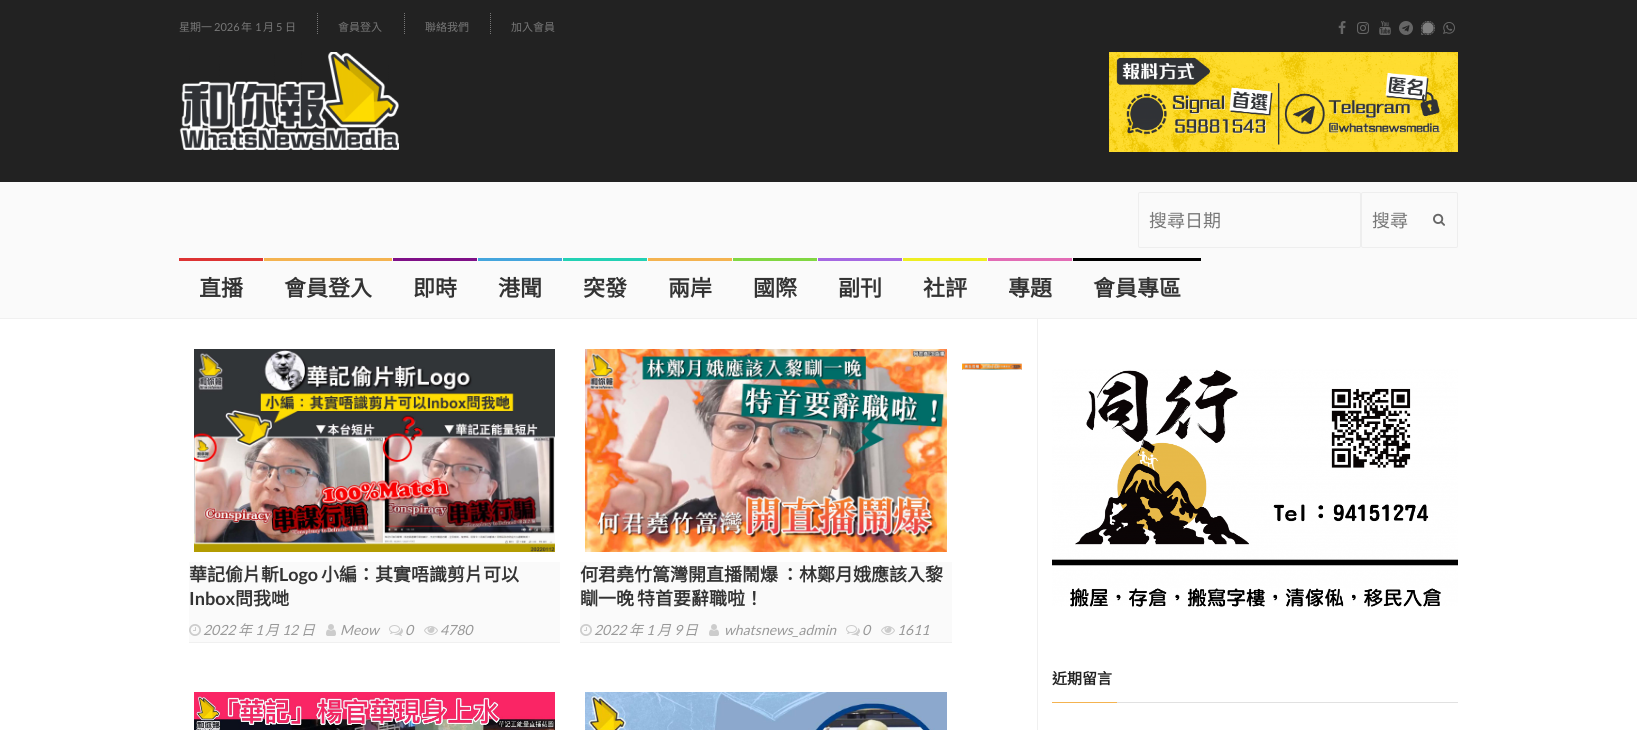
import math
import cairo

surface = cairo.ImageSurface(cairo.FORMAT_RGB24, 1637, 730)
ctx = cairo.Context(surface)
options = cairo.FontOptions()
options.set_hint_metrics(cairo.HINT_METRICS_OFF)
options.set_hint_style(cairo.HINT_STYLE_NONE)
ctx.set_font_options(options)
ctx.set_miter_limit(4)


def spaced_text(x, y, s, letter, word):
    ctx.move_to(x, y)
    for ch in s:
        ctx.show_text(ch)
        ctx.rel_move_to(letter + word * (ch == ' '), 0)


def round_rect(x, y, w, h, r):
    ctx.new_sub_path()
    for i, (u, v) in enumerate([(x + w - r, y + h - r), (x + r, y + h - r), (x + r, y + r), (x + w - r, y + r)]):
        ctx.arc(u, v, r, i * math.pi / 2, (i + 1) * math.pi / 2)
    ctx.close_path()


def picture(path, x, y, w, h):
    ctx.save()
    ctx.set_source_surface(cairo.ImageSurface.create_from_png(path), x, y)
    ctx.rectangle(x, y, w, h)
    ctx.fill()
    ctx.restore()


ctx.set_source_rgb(1, 1, 1)
ctx.paint()
ctx.set_source_rgb(0.98, 0.98, 0.98)
ctx.rectangle(0, 182, 1637, 136)
ctx.fill()
ctx.set_source_rgb(0.133, 0.133, 0.133)
ctx.rectangle(0, 0, 1637, 182)
ctx.fill()
picture("img1.png", 179, 52, 220, 98)
picture("img2.png", 1109, 52, 349, 100)
ctx.select_font_face("Noto Sans CJK TC")
ctx.set_font_size(11)
ctx.set_source_rgb(0.467, 0.467, 0.467)
ctx.move_to(179, 31)
ctx.show_text("星期一")
ctx.select_font_face("Lato")
ctx.move_to(214, 31)
ctx.show_text("2026")
ctx.select_font_face("Noto Sans CJK TC")
ctx.move_to(241, 31)
ctx.show_text("年")
ctx.select_font_face("Lato")
ctx.move_to(255, 31)
ctx.show_text("1")
ctx.select_font_face("Noto Sans CJK TC")
ctx.move_to(263, 31)
ctx.show_text("月")
ctx.select_font_face("Lato")
ctx.move_to(276, 31)
ctx.show_text("5")
ctx.select_font_face("Noto Sans CJK TC")
ctx.move_to(285, 31)
ctx.show_text("日")
ctx.new_path()
ctx.move_to(317.5, 13)
ctx.line_to(317.5, 35)
ctx.set_line_width(1)
ctx.set_dash([1, 1])
ctx.stroke()
ctx.move_to(338, 31)
ctx.show_text("會員登入")
ctx.new_path()
ctx.move_to(404.5, 13)
ctx.line_to(404.5, 35)
ctx.stroke()
ctx.move_to(425, 31)
ctx.show_text("聯絡我們")
ctx.new_path()
ctx.move_to(490.5, 13)
ctx.line_to(490.5, 35)
ctx.stroke()
ctx.move_to(511, 31)
ctx.show_text("加入會員")
picture("img3.png", 1338, 21, 8, 13)
picture("img4.png", 1357, 22, 12, 12)
picture("img5.png", 1379, 21, 12, 14)
picture("img6.png", 1399, 21, 14, 14)
picture("img7.png", 1421, 21, 14, 14)
picture("img8.png", 1443, 22, 12, 12)
ctx.set_source_rgb(0.941, 0.941, 0.941)
ctx.rectangle(0, 318, 1637, 1)
ctx.fill()
round_rect(1138.5, 192.5, 222, 55, 1.5)
ctx.set_source_rgb(0.933, 0.933, 0.933)
ctx.set_dash([])
ctx.stroke()
ctx.set_font_size(18)
ctx.set_source_rgb(0.467, 0.467, 0.467)
ctx.move_to(1149, 227)
ctx.show_text("搜尋日期")
round_rect(1361.5, 192.5, 96, 55, 1.5)
ctx.set_source_rgb(0.933, 0.933, 0.933)
ctx.stroke()
ctx.set_source_rgb(0.467, 0.467, 0.467)
ctx.move_to(1372, 227)
ctx.show_text("搜尋")
picture("img9.png", 1433, 213, 12, 13)
ctx.set_source_rgb(0.867, 0.2, 0.2)
ctx.rectangle(179, 258, 84, 3)
ctx.fill()
ctx.select_font_face("Noto Sans CJK TC", cairo.FONT_SLANT_NORMAL, cairo.FONT_WEIGHT_BOLD)
ctx.set_font_size(22)
ctx.set_source_rgb(0.2, 0.2, 0.2)
ctx.move_to(199, 296)
ctx.show_text("直播")
ctx.set_source_rgb(0.957, 0.702, 0.314)
ctx.rectangle(264, 258, 128, 3)
ctx.fill()
ctx.set_source_rgb(0.2, 0.2, 0.2)
ctx.move_to(284, 296)
ctx.show_text("會員登入")
ctx.set_source_rgb(0.498, 0.063, 0.529)
ctx.rectangle(393, 258, 84, 3)
ctx.fill()
ctx.set_source_rgb(0.2, 0.2, 0.2)
ctx.move_to(413, 296)
ctx.show_text("即時")
ctx.set_source_rgb(0.267, 0.647, 0.867)
ctx.rectangle(478, 258, 84, 3)
ctx.fill()
ctx.set_source_rgb(0.2, 0.2, 0.2)
ctx.move_to(498, 296)
ctx.show_text("港聞")
ctx.set_source_rgb(0.137, 0.82, 0.706)
ctx.rectangle(563, 258, 84, 3)
ctx.fill()
ctx.set_source_rgb(0.2, 0.2, 0.2)
ctx.move_to(583, 296)
ctx.show_text("突發")
ctx.set_source_rgb(0.957, 0.702, 0.314)
ctx.rectangle(648, 258, 84, 3)
ctx.fill()
ctx.set_source_rgb(0.2, 0.2, 0.2)
ctx.move_to(668, 296)
ctx.show_text("兩岸")
ctx.set_source_rgb(0.506, 0.843, 0.259)
ctx.rectangle(733, 258, 84, 3)
ctx.fill()
ctx.set_source_rgb(0.2, 0.2, 0.2)
ctx.move_to(753, 296)
ctx.show_text("國際")
ctx.set_source_rgb(0.647, 0.408, 0.886)
ctx.rectangle(818, 258, 84, 3)
ctx.fill()
ctx.set_source_rgb(0.2, 0.2, 0.2)
ctx.move_to(838, 296)
ctx.show_text("副刊")
ctx.set_source_rgb(0.933, 0.933, 0.133)
ctx.rectangle(903, 258, 84, 3)
ctx.fill()
ctx.set_source_rgb(0.2, 0.2, 0.2)
ctx.move_to(923, 296)
ctx.show_text("社評")
ctx.set_source_rgb(0.886, 0.424, 0.71)
ctx.rectangle(988, 258, 84, 3)
ctx.fill()
ctx.set_source_rgb(0.2, 0.2, 0.2)
ctx.move_to(1008, 296)
ctx.show_text("專題")
ctx.set_source_rgb(0, 0, 0)
ctx.rectangle(1073, 258, 128, 3)
ctx.fill()
ctx.set_source_rgb(0.2, 0.2, 0.2)
ctx.move_to(1093, 296)
ctx.show_text("會員專區")
picture("img10.png", 962, 363, 60, 7)
picture("img11.png", 194, 349, 361, 203)
ctx.set_source_rgb(0.98, 0.98, 0.98)
ctx.rectangle(189, 562, 371, 80)
ctx.fill()
ctx.set_source_rgb(0.941, 0.941, 0.941)
ctx.rectangle(189, 642, 371, 1)
ctx.fill()
ctx.set_font_size(18)
ctx.set_source_rgb(0.2, 0.2, 0.2)
ctx.move_to(189, 581)
ctx.show_text("華記偷片斬")
ctx.select_font_face("Lato", cairo.FONT_SLANT_NORMAL, cairo.FONT_WEIGHT_BOLD)
ctx.move_to(279, 581)
ctx.show_text("Logo")
ctx.select_font_face("Noto Sans CJK TC", cairo.FONT_SLANT_NORMAL, cairo.FONT_WEIGHT_BOLD)
ctx.move_to(321, 581)
ctx.show_text("小編：其實唔識剪片可以")
ctx.select_font_face("Lato", cairo.FONT_SLANT_NORMAL, cairo.FONT_WEIGHT_BOLD)
ctx.move_to(189, 605)
ctx.show_text("Inbox")
ctx.select_font_face("Noto Sans CJK TC", cairo.FONT_SLANT_NORMAL, cairo.FONT_WEIGHT_BOLD)
ctx.move_to(235, 605)
ctx.show_text("問我哋")
picture("img12.png", 189, 624, 12, 12)
ctx.select_font_face("Lato", cairo.FONT_SLANT_ITALIC)
ctx.set_font_size(14)
ctx.set_source_rgb(0.6, 0.6, 0.6)
ctx.move_to(203, 635)
ctx.show_text("2022")
ctx.select_font_face("Noto Sans CJK TC", cairo.FONT_SLANT_ITALIC)
ctx.move_to(238, 635)
ctx.show_text("年")
ctx.select_font_face("Lato", cairo.FONT_SLANT_ITALIC)
ctx.move_to(255, 635)
ctx.show_text("1")
ctx.select_font_face("Noto Sans CJK TC", cairo.FONT_SLANT_ITALIC)
ctx.move_to(265, 635)
ctx.show_text("月")
ctx.select_font_face("Lato", cairo.FONT_SLANT_ITALIC)
ctx.move_to(282, 635)
ctx.show_text("12")
ctx.select_font_face("Noto Sans CJK TC", cairo.FONT_SLANT_ITALIC)
ctx.move_to(301, 635)
ctx.show_text("日")
picture("img13.png", 326, 624, 10, 12)
ctx.select_font_face("Lato", cairo.FONT_SLANT_ITALIC)
ctx.move_to(340, 635)
ctx.show_text("Meow")
picture("img14.png", 389, 625, 14, 11)
ctx.move_to(405, 635)
ctx.show_text("0")
picture("img15.png", 424, 626, 14, 9)
ctx.move_to(440, 635)
ctx.show_text("4780")
picture("img16.png", 585, 349, 362, 203)
ctx.set_source_rgb(0.98, 0.98, 0.98)
ctx.rectangle(580, 562, 372, 80)
ctx.fill()
ctx.set_source_rgb(0.941, 0.941, 0.941)
ctx.rectangle(580, 642, 372, 1)
ctx.fill()
ctx.select_font_face("Noto Sans CJK TC", cairo.FONT_SLANT_NORMAL, cairo.FONT_WEIGHT_BOLD)
ctx.set_font_size(18)
ctx.set_source_rgb(0.2, 0.2, 0.2)
spaced_text(580, 581, "何君堯竹篙灣開直播鬧爆 ：林鄭月娥應該入黎", 0, -1)
spaced_text(580, 605, "瞓一晚 特首要辭職啦！", 0, -1)
picture("img12.png", 580, 624, 12, 12)
ctx.select_font_face("Lato", cairo.FONT_SLANT_ITALIC)
ctx.set_font_size(14)
ctx.set_source_rgb(0.6, 0.6, 0.6)
ctx.move_to(594, 635)
ctx.show_text("2022")
ctx.select_font_face("Noto Sans CJK TC", cairo.FONT_SLANT_ITALIC)
ctx.move_to(629, 635)
ctx.show_text("年")
ctx.select_font_face("Lato", cairo.FONT_SLANT_ITALIC)
ctx.move_to(646, 635)
ctx.show_text("1")
ctx.select_font_face("Noto Sans CJK TC", cairo.FONT_SLANT_ITALIC)
ctx.move_to(657, 635)
ctx.show_text("月")
ctx.select_font_face("Lato", cairo.FONT_SLANT_ITALIC)
ctx.move_to(674, 635)
ctx.show_text("9")
ctx.select_font_face("Noto Sans CJK TC", cairo.FONT_SLANT_ITALIC)
ctx.move_to(684, 635)
ctx.show_text("日")
picture("img13.png", 709, 624, 10, 12)
ctx.select_font_face("Lato", cairo.FONT_SLANT_ITALIC)
ctx.move_to(724, 635)
ctx.show_text("whatsnews_admin")
picture("img14.png", 846, 625, 14, 11)
ctx.move_to(862, 635)
ctx.show_text("0")
picture("img15.png", 881, 626, 14, 9)
ctx.move_to(897, 635)
ctx.show_text("1611")
picture("img17.png", 194, 692, 361, 38)
picture("img18.png", 585, 692, 362, 38)
ctx.set_source_rgb(0.941, 0.941, 0.941)
ctx.rectangle(1037, 319, 1, 411)
ctx.fill()
picture("img19.png", 1052, 369, 406, 238)
ctx.set_source_rgb(0.882, 0.882, 0.882)
ctx.rectangle(1117, 702, 341, 1)
ctx.fill()
ctx.set_source_rgb(0.957, 0.702, 0.314)
ctx.rectangle(1052, 702, 65, 1)
ctx.fill()
ctx.select_font_face("Noto Sans CJK TC", cairo.FONT_SLANT_NORMAL, cairo.FONT_WEIGHT_BOLD)
ctx.set_font_size(15)
ctx.set_source_rgb(0.133, 0.133, 0.133)
ctx.move_to(1052, 684)
ctx.show_text("近期留言")
surface.write_to_png("page.png")
